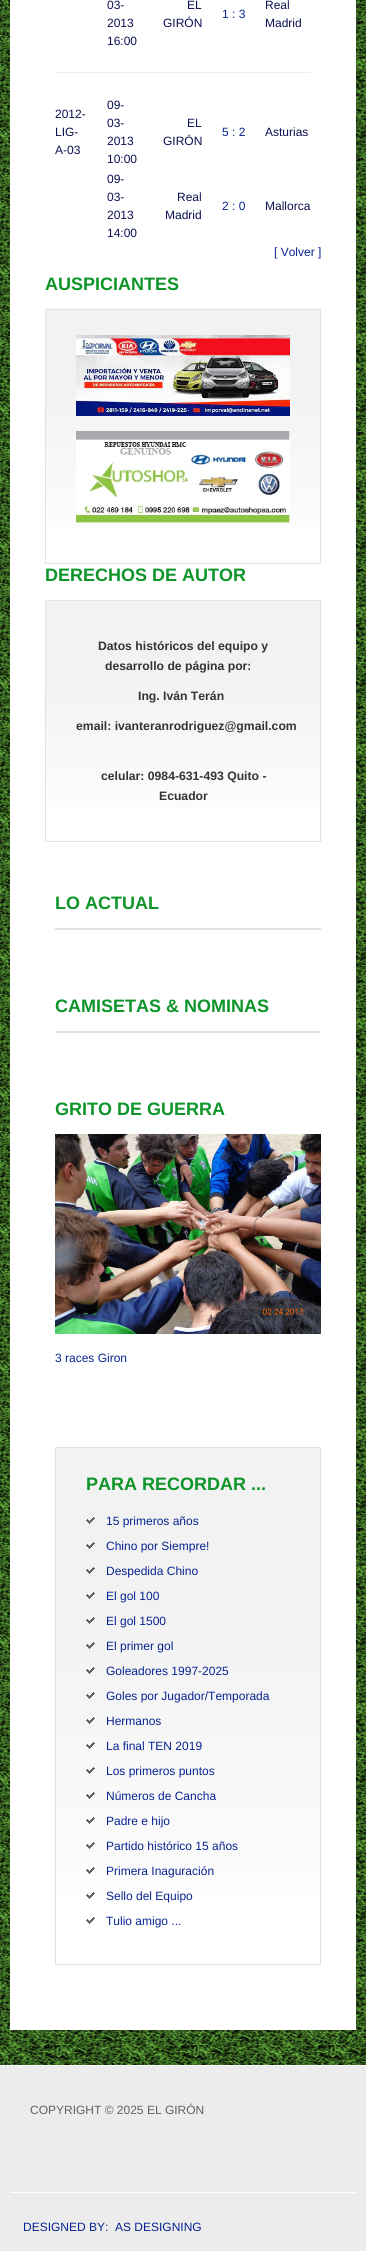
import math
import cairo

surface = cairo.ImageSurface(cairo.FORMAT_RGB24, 366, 2251)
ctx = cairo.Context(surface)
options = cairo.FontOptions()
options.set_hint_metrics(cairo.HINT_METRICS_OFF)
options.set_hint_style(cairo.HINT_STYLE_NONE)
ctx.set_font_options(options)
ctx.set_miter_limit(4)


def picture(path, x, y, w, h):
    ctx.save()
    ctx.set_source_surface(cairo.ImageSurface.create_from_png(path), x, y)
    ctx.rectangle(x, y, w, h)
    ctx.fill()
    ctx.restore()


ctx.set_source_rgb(1, 1, 1)
ctx.paint()
picture("img1.png", 0, 0, 366, 2065)
ctx.set_source_rgb(1, 1, 1)
ctx.rectangle(10, 0, 346, 2030)
ctx.fill()
ctx.select_font_face("Liberation Sans")
ctx.set_font_size(12)
ctx.set_source_rgb(0.043, 0.063, 0.31)
ctx.move_to(107, 9)
ctx.show_text("03-")
ctx.move_to(107, 27)
ctx.show_text("2013")
ctx.move_to(107, 45)
ctx.show_text("16:00")
ctx.move_to(187, 9)
ctx.show_text("EL")
ctx.move_to(163, 27)
ctx.show_text("GIRÓN")
ctx.set_source_rgb(0.027, 0.137, 0.569)
ctx.move_to(222, 18)
ctx.show_text("1 : 3")
ctx.set_source_rgb(0.043, 0.063, 0.31)
ctx.move_to(265, 9)
ctx.show_text("Real")
ctx.move_to(265, 27)
ctx.show_text("Madrid")
ctx.set_source_rgb(0.933, 0.933, 0.933)
ctx.rectangle(55, 72, 256, 1)
ctx.fill()
ctx.set_source_rgb(0.043, 0.063, 0.31)
ctx.move_to(55, 118)
ctx.show_text("2012-")
ctx.move_to(55, 136)
ctx.show_text("LIG-")
ctx.move_to(55, 154)
ctx.show_text("A-03")
ctx.move_to(107, 109)
ctx.show_text("09-")
ctx.move_to(107, 127)
ctx.show_text("03-")
ctx.move_to(107, 145)
ctx.show_text("2013")
ctx.move_to(107, 163)
ctx.show_text("10:00")
ctx.move_to(187, 127)
ctx.show_text("EL")
ctx.move_to(163, 145)
ctx.show_text("GIRÓN")
ctx.set_source_rgb(0.027, 0.137, 0.569)
ctx.move_to(222, 136)
ctx.show_text("5 : 2")
ctx.set_source_rgb(0.043, 0.063, 0.31)
ctx.move_to(265, 136)
ctx.show_text("Asturias")
ctx.move_to(107, 183)
ctx.show_text("09-")
ctx.move_to(107, 201)
ctx.show_text("03-")
ctx.move_to(107, 219)
ctx.show_text("2013")
ctx.move_to(107, 237)
ctx.show_text("14:00")
ctx.move_to(177, 201)
ctx.show_text("Real")
ctx.move_to(165, 219)
ctx.show_text("Madrid")
ctx.set_source_rgb(0.027, 0.137, 0.569)
ctx.move_to(222, 210)
ctx.show_text("2 : 0")
ctx.set_source_rgb(0.043, 0.063, 0.31)
ctx.move_to(265, 210)
ctx.show_text("Mallorca")
ctx.set_source_rgb(0.027, 0.137, 0.569)
ctx.move_to(274, 256)
ctx.show_text("[ Volver ]")
ctx.select_font_face("Liberation Sans", cairo.FONT_SLANT_NORMAL, cairo.FONT_WEIGHT_BOLD)
ctx.set_font_size(18)
ctx.set_source_rgb(0.055, 0.584, 0.161)
ctx.move_to(45, 290)
ctx.show_text("AUSPICIANTES")
gradient = cairo.LinearGradient(46, 563, 46, 310)
gradient.add_color_stop_rgba(0, 1, 1, 1, 1)
gradient.add_color_stop_rgba(0.69, 0.949, 0.949, 0.949, 1)
ctx.set_source(gradient)
ctx.rectangle(46, 310, 274, 219)
ctx.fill()
ctx.rectangle(45.5, 309.5, 275, 254)
ctx.set_source_rgb(0.886, 0.886, 0.886)
ctx.set_line_width(1)
ctx.stroke()
picture("img2.png", 76, 335, 214, 81)
picture("img3.png", 76, 431, 214, 92)
ctx.set_source_rgb(0.055, 0.584, 0.161)
ctx.move_to(45, 581)
ctx.show_text("DERECHOS DE AUTOR")
gradient = cairo.LinearGradient(46, 841, 46, 601)
gradient.add_color_stop_rgba(0, 1, 1, 1, 1)
gradient.add_color_stop_rgba(0.69, 0.949, 0.949, 0.949, 1)
ctx.set_source(gradient)
ctx.rectangle(46, 601, 274, 208)
ctx.fill()
ctx.rectangle(45.5, 600.5, 275, 241)
ctx.set_source_rgb(0.886, 0.886, 0.886)
ctx.stroke()
ctx.set_font_size(12.2)
ctx.set_source_rgb(0.2, 0.2, 0.2)
ctx.move_to(98, 650)
ctx.show_text("Datos históricos del equipo y")
ctx.move_to(105, 670)
ctx.show_text("desarrollo de página por:")
ctx.move_to(138, 700)
ctx.show_text("Ing. Iván Terán")
ctx.move_to(76, 730)
ctx.show_text("email: ivanteranrodriguez@gmail.com")
ctx.move_to(101, 780)
ctx.show_text("celular: 0984-631-493 Quito -")
ctx.move_to(159, 800)
ctx.show_text("Ecuador")
ctx.set_font_size(18)
ctx.set_source_rgb(0.055, 0.584, 0.161)
ctx.move_to(55, 909)
ctx.show_text("LO ACTUAL")
ctx.set_source_rgb(0.882, 0.882, 0.882)
ctx.rectangle(55, 928, 266, 2)
ctx.fill()
ctx.set_source_rgb(0.055, 0.584, 0.161)
ctx.move_to(55, 1012)
ctx.show_text("CAMISETAS & NOMINAS")
ctx.set_source_rgb(0.882, 0.882, 0.882)
ctx.rectangle(55, 1031, 266, 2)
ctx.fill()
ctx.set_source_rgb(0.055, 0.584, 0.161)
ctx.move_to(55, 1115)
ctx.show_text("GRITO DE GUERRA")
picture("img4.png", 55, 1134, 266, 200)
ctx.select_font_face("Liberation Sans")
ctx.set_font_size(12)
ctx.set_source_rgb(0.027, 0.137, 0.569)
ctx.move_to(55, 1362)
ctx.show_text("3 races Giron")
gradient = cairo.LinearGradient(56, 1964, 56, 1448)
gradient.add_color_stop_rgba(0, 1, 1, 1, 1)
gradient.add_color_stop_rgba(0.69, 0.949, 0.949, 0.949, 1)
ctx.set_source(gradient)
ctx.rectangle(56, 1448, 264, 448)
ctx.fill()
ctx.rectangle(55.5, 1447.5, 265, 517)
ctx.set_source_rgb(0.886, 0.886, 0.886)
ctx.stroke()
ctx.select_font_face("Liberation Sans", cairo.FONT_SLANT_NORMAL, cairo.FONT_WEIGHT_BOLD)
ctx.set_font_size(18)
ctx.set_source_rgb(0.055, 0.584, 0.161)
ctx.move_to(86, 1490)
ctx.show_text("PARA RECORDAR ...")
picture("img5.png", 86, 1517, 9, 7)
ctx.select_font_face("Liberation Sans")
ctx.set_font_size(12)
ctx.set_source_rgb(0.027, 0.137, 0.569)
ctx.move_to(106, 1525)
ctx.show_text("15 primeros años")
picture("img5.png", 86, 1542, 9, 7)
ctx.move_to(106, 1550)
ctx.show_text("Chino por Siempre!")
picture("img5.png", 86, 1567, 9, 7)
ctx.move_to(106, 1575)
ctx.show_text("Despedida Chino")
picture("img5.png", 86, 1592, 9, 7)
ctx.move_to(106, 1600)
ctx.show_text("El gol 100")
picture("img6.png", 86, 1617, 9, 7)
ctx.move_to(106, 1625)
ctx.show_text("El gol 1500")
picture("img7.png", 86, 1642, 9, 7)
ctx.move_to(106, 1650)
ctx.show_text("El primer gol")
picture("img8.png", 86, 1667, 9, 7)
ctx.move_to(106, 1675)
ctx.show_text("Goleadores 1997-2025")
picture("img9.png", 86, 1692, 9, 7)
ctx.move_to(106, 1700)
ctx.show_text("Goles por Jugador/Temporada")
picture("img10.png", 86, 1717, 9, 7)
ctx.move_to(106, 1725)
ctx.show_text("Hermanos")
picture("img11.png", 86, 1742, 9, 7)
ctx.move_to(106, 1750)
ctx.show_text("La final TEN 2019")
picture("img12.png", 86, 1767, 9, 7)
ctx.move_to(106, 1775)
ctx.show_text("Los primeros puntos")
picture("img13.png", 86, 1792, 9, 7)
ctx.move_to(106, 1800)
ctx.show_text("Números de Cancha")
picture("img14.png", 86, 1817, 9, 7)
ctx.move_to(106, 1825)
ctx.show_text("Padre e hijo")
picture("img15.png", 86, 1842, 9, 7)
ctx.move_to(106, 1850)
ctx.show_text("Partido histórico 15 años")
picture("img16.png", 86, 1867, 9, 7)
ctx.move_to(106, 1875)
ctx.show_text("Primera Inaguración")
picture("img17.png", 86, 1892, 9, 7)
ctx.move_to(106, 1900)
ctx.show_text("Sello del Equipo")
picture("img18.png", 86, 1917, 9, 7)
ctx.move_to(106, 1925)
ctx.show_text("Tulio amigo ...")
ctx.set_source_rgb(0.922, 0.922, 0.922)
ctx.rectangle(0, 2066, 366, 185)
ctx.fill()
ctx.set_source_rgb(0.384, 0.384, 0.384)
ctx.move_to(30, 2114)
ctx.show_text("COPYRIGHT © 2025 EL GIRÓN")
ctx.set_source_rgb(1, 1, 1)
ctx.rectangle(10, 2192, 346, 1)
ctx.fill()
ctx.set_source_rgb(0.027, 0.137, 0.569)
ctx.move_to(23, 2231)
ctx.show_text("DESIGNED BY:  AS DESIGNING")
surface.write_to_png("page.png")
